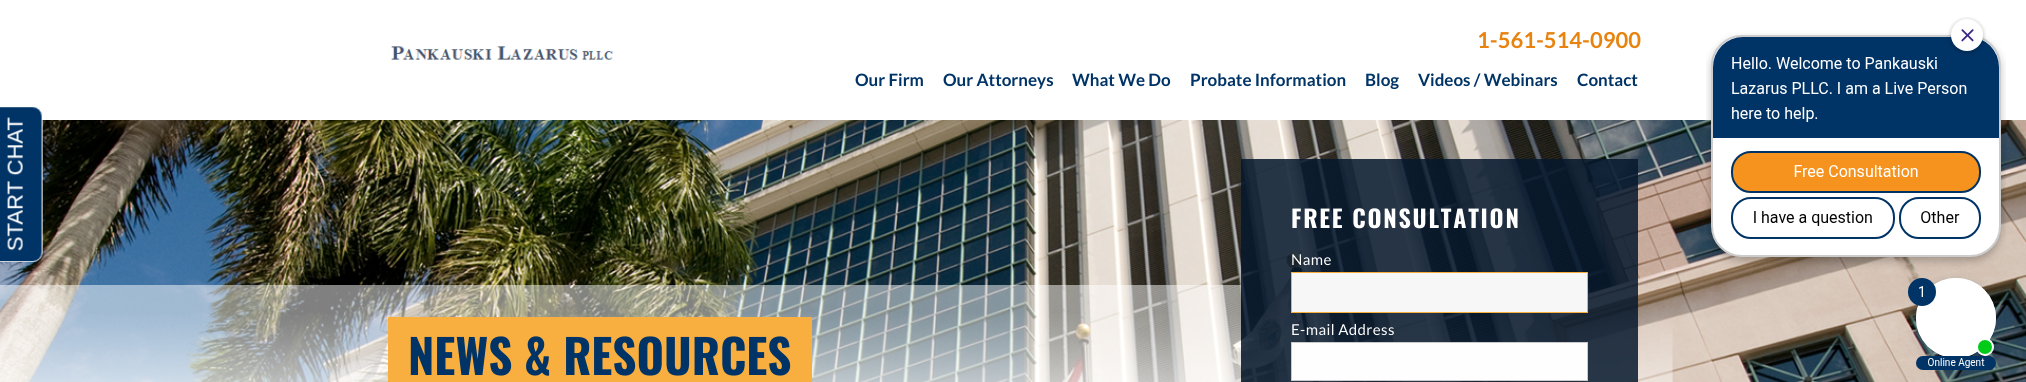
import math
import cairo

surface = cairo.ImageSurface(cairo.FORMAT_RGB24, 2026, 382)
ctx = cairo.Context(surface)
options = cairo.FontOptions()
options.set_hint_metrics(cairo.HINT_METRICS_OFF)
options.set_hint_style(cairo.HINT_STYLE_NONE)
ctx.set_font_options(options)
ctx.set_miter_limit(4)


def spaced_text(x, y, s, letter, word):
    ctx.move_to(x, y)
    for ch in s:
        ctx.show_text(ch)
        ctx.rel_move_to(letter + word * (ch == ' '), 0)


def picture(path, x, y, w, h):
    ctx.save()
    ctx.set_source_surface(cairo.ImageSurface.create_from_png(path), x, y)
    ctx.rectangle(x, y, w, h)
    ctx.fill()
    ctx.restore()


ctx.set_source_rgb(1, 1, 1)
ctx.paint()
ctx.select_font_face("Lato", cairo.FONT_SLANT_NORMAL, cairo.FONT_WEIGHT_BOLD)
ctx.set_font_size(22)
ctx.set_source_rgb(0.906, 0.514, 0.055)
ctx.move_to(1477, 48)
ctx.show_text("1-561-514-0900")
picture("img1.png", 391, 46, 222, 14)
ctx.set_font_size(17)
ctx.set_source_rgb(0, 0.2, 0.4)
ctx.move_to(855, 86)
ctx.show_text("Our Firm")
ctx.move_to(943, 86)
ctx.show_text("Our Attorneys")
ctx.move_to(1072, 86)
ctx.show_text("What We Do")
ctx.move_to(1190, 86)
ctx.show_text("Probate Information")
ctx.move_to(1365, 86)
ctx.show_text("Blog")
ctx.move_to(1418, 86)
ctx.show_text("Videos / Webinars")
ctx.move_to(1577, 86)
ctx.show_text("Contact")
picture("img4.png", 0, 120, 2026, 262)
picture("img2.png", 1706, 17, 300, 353)
picture("img3.png", 0, 106, 43, 156)
ctx.set_source_rgba(0.02, 0.094, 0.176, 0.85)
ctx.rectangle(1241, 159, 397, 223)
ctx.fill()
ctx.select_font_face("Oswald", cairo.FONT_SLANT_NORMAL, cairo.FONT_WEIGHT_BOLD)
ctx.set_font_size(24)
ctx.set_source_rgb(1, 1, 1)
spaced_text(1291, 228, "FREE CONSULTATION", 1.75, 0)
ctx.select_font_face("Lato")
ctx.set_font_size(15)
spaced_text(1291, 265, "Name", 0.4, 0)
ctx.set_source_rgb(0.965, 0.965, 0.965)
ctx.rectangle(1291.5, 272.5, 296, 40)
ctx.fill_preserve()
ctx.set_source_rgb(0.976, 0.682, 0.251)
ctx.set_line_width(1)
ctx.stroke()
ctx.set_source_rgb(1, 1, 1)
spaced_text(1291, 335, "E-mail Address", 0.4, 0)
ctx.set_source_rgb(0.996, 0.996, 0.996)
ctx.rectangle(1291.5, 342.5, 296, 38)
ctx.fill_preserve()
ctx.set_source_rgb(0.792, 0.792, 0.792)
ctx.stroke()
ctx.set_source_rgba(1, 1, 1, 0.5)
ctx.rectangle(0, 285, 1241, 97)
ctx.fill()
ctx.set_source_rgb(0.976, 0.682, 0.251)
ctx.rectangle(388, 317, 424, 65)
ctx.fill()
ctx.select_font_face("Oswald", cairo.FONT_SLANT_NORMAL, cairo.FONT_WEIGHT_BOLD)
ctx.set_font_size(47)
ctx.set_source_rgb(0, 0.2, 0.4)
ctx.move_to(408, 375)
ctx.show_text("NEWS & RESOURCES")
surface.write_to_png("page.png")
